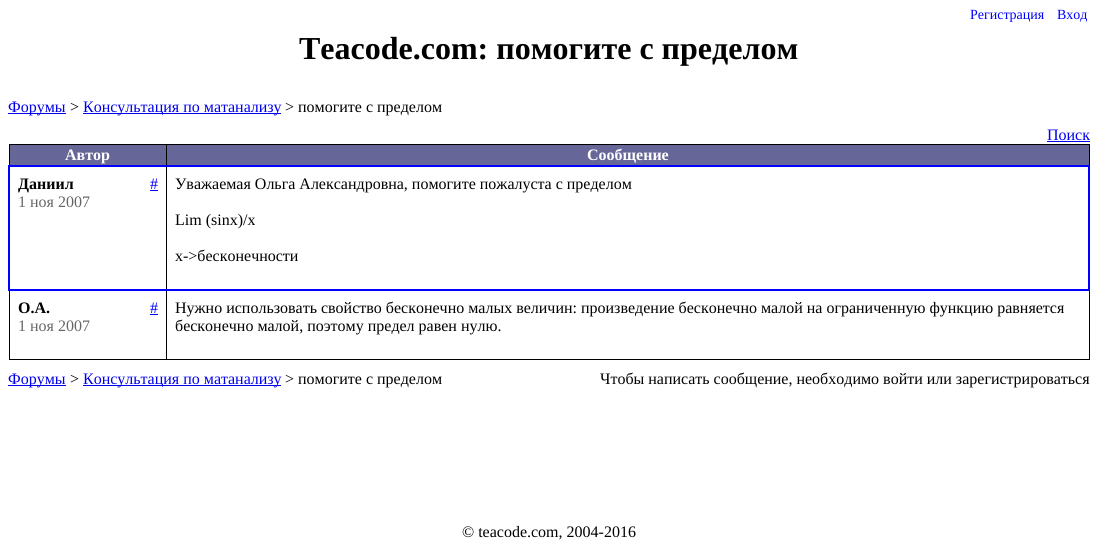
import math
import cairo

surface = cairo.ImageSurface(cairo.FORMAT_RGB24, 1098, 553)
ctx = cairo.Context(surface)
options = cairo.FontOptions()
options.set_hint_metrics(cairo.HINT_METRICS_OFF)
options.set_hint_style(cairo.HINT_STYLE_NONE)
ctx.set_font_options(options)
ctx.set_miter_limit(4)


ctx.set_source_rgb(1, 1, 1)
ctx.paint()
ctx.select_font_face("Liberation Serif")
ctx.set_font_size(14)
ctx.set_source_rgb(0, 0, 1)
ctx.move_to(970, 19)
ctx.show_text("Регистрация")
ctx.move_to(1057, 19)
ctx.show_text("Вход")
ctx.select_font_face("Liberation Serif", cairo.FONT_SLANT_NORMAL, cairo.FONT_WEIGHT_BOLD)
ctx.set_font_size(32)
ctx.set_source_rgb(0, 0, 0)
ctx.move_to(299, 59)
ctx.show_text("Teacode.com: помогите с пределом")
ctx.set_source_rgb(0, 0, 0.933)
ctx.rectangle(8, 113, 58, 1)
ctx.fill()
ctx.select_font_face("Liberation Serif")
ctx.set_font_size(16)
ctx.move_to(8, 112)
ctx.show_text("Форумы")
ctx.set_source_rgb(0, 0, 0)
ctx.move_to(70, 112)
ctx.show_text(">")
ctx.set_source_rgb(0, 0, 0.933)
ctx.rectangle(83, 113, 198, 1)
ctx.fill()
ctx.move_to(83, 112)
ctx.show_text("Консультация по матанализу")
ctx.set_source_rgb(0, 0, 0)
ctx.move_to(285, 112)
ctx.show_text("> помогите с пределом")
ctx.set_source_rgb(0, 0, 0.933)
ctx.move_to(1047, 140)
ctx.show_text("Поиск")
ctx.rectangle(1047, 141, 43, 1)
ctx.fill()
ctx.set_source_rgb(0.4, 0.4, 0.6)
ctx.rectangle(10, 145, 1079, 20)
ctx.fill()
ctx.set_source_rgb(0, 0, 0)
ctx.rectangle(166, 144, 924, 1)
ctx.fill()
ctx.rectangle(1089, 289, 1, 71)
ctx.fill()
ctx.rectangle(166, 359, 924, 1)
ctx.fill()
ctx.rectangle(166, 165, 1, 195)
ctx.fill()
ctx.rectangle(166, 144, 1, 22)
ctx.fill()
ctx.rectangle(9, 144, 158, 1)
ctx.fill()
ctx.rectangle(9, 144, 1, 22)
ctx.fill()
ctx.select_font_face("Liberation Serif", cairo.FONT_SLANT_NORMAL, cairo.FONT_WEIGHT_BOLD)
ctx.set_source_rgb(1, 1, 1)
ctx.move_to(65, 160)
ctx.show_text("Автор")
ctx.set_source_rgb(0, 0, 0)
ctx.rectangle(1089, 144, 1, 22)
ctx.fill()
ctx.set_source_rgb(1, 1, 1)
ctx.move_to(587, 160)
ctx.show_text("Сообщение")
ctx.set_source_rgb(0, 0, 1)
ctx.rectangle(8, 165, 1082, 2)
ctx.fill()
ctx.rectangle(1088, 165, 2, 126)
ctx.fill()
ctx.set_source_rgb(0, 0, 0)
ctx.rectangle(9, 359, 158, 1)
ctx.fill()
ctx.rectangle(9, 289, 1, 71)
ctx.fill()
ctx.set_source_rgb(0, 0, 1)
ctx.rectangle(8, 289, 1082, 2)
ctx.fill()
ctx.rectangle(8, 165, 2, 126)
ctx.fill()
ctx.set_source_rgb(0, 0, 0)
ctx.move_to(18, 189)
ctx.show_text("Даниил")
ctx.select_font_face("Liberation Serif")
ctx.set_source_rgb(0, 0, 1)
ctx.move_to(150, 189)
ctx.show_text("#")
ctx.rectangle(150, 190, 8, 1)
ctx.fill()
ctx.set_source_rgb(0.4, 0.4, 0.4)
ctx.move_to(18, 207)
ctx.show_text("1 ноя 2007")
ctx.set_source_rgb(0, 0, 0)
ctx.move_to(175, 189)
ctx.show_text("Уважаемая Ольга Александровна, помогите пожалуста с пределом")
ctx.move_to(175, 225)
ctx.show_text("Lim (sinx)/x")
ctx.move_to(175, 261)
ctx.show_text("x->бесконечности")
ctx.select_font_face("Liberation Serif", cairo.FONT_SLANT_NORMAL, cairo.FONT_WEIGHT_BOLD)
ctx.move_to(18, 313)
ctx.show_text("О.А.")
ctx.select_font_face("Liberation Serif")
ctx.set_source_rgb(0, 0, 1)
ctx.move_to(150, 313)
ctx.show_text("#")
ctx.rectangle(150, 314, 8, 1)
ctx.fill()
ctx.set_source_rgb(0.4, 0.4, 0.4)
ctx.move_to(18, 331)
ctx.show_text("1 ноя 2007")
ctx.set_source_rgb(0, 0, 0)
ctx.move_to(175, 313)
ctx.show_text("Нужно использовать свойство бесконечно малых величин: произведение бесконечно малой на ограниченную функцию равняется")
ctx.move_to(175, 331)
ctx.show_text("бесконечно малой, поэтому предел равен нулю.")
ctx.set_source_rgb(0, 0, 0.933)
ctx.rectangle(8, 385, 58, 1)
ctx.fill()
ctx.move_to(8, 384)
ctx.show_text("Форумы")
ctx.set_source_rgb(0, 0, 0)
ctx.move_to(70, 384)
ctx.show_text(">")
ctx.set_source_rgb(0, 0, 0.933)
ctx.rectangle(83, 385, 198, 1)
ctx.fill()
ctx.move_to(83, 384)
ctx.show_text("Консультация по матанализу")
ctx.set_source_rgb(0, 0, 0)
ctx.move_to(285, 384)
ctx.show_text("> помогите с пределом")
ctx.move_to(600, 384)
ctx.show_text("Чтобы написать сообщение, необходимо войти или зарегистрироваться")
ctx.move_to(462, 537)
ctx.show_text("© teacode.com, 2004-2016")
surface.write_to_png("page.png")
